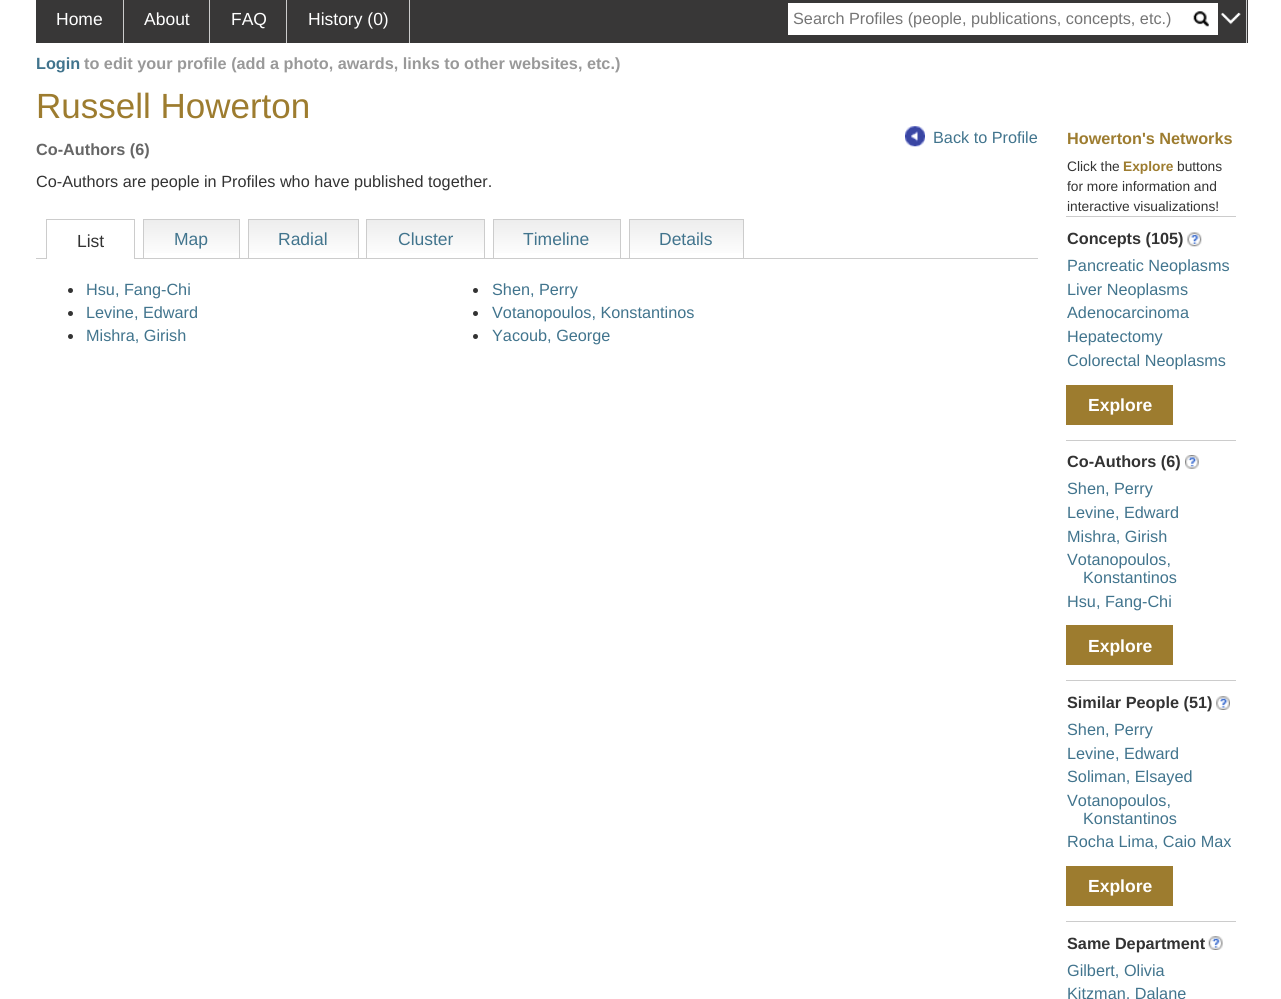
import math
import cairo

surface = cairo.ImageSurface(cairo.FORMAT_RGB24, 1281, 999)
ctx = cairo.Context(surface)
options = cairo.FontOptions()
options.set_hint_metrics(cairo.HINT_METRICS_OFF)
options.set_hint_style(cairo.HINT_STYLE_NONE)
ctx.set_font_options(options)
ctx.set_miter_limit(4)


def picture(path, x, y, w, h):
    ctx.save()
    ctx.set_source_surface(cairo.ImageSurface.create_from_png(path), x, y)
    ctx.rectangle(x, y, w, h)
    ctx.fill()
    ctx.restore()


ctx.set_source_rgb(1, 1, 1)
ctx.paint()
ctx.set_source_rgb(0.22, 0.216, 0.216)
ctx.rectangle(36, 0, 1212, 43)
ctx.fill()
ctx.set_source_rgb(0.8, 0.8, 0.8)
ctx.rectangle(123, 0, 1, 43)
ctx.fill()
ctx.select_font_face("Liberation Sans")
ctx.set_font_size(17.5)
ctx.set_source_rgb(1, 1, 1)
ctx.move_to(56, 25)
ctx.show_text("Home")
ctx.set_source_rgb(0.8, 0.8, 0.8)
ctx.rectangle(209, 0, 1, 43)
ctx.fill()
ctx.set_source_rgb(1, 1, 1)
ctx.move_to(144, 25)
ctx.show_text("About")
ctx.set_source_rgb(0.8, 0.8, 0.8)
ctx.rectangle(286, 0, 1, 43)
ctx.fill()
ctx.set_source_rgb(1, 1, 1)
ctx.move_to(231, 25)
ctx.show_text("FAQ")
ctx.set_source_rgb(0.8, 0.8, 0.8)
ctx.rectangle(409, 0, 1, 43)
ctx.fill()
ctx.set_source_rgb(1, 1, 1)
ctx.move_to(308, 25)
ctx.show_text("History (0)")
ctx.rectangle(788, 3, 430, 32)
ctx.fill()
ctx.set_font_size(16.25)
ctx.set_source_rgb(0.459, 0.459, 0.459)
ctx.move_to(793, 24)
ctx.show_text("Search Profiles (people, publications, concepts, etc.)")
picture("img1.png", 1193, 11, 16, 16)
ctx.set_source_rgb(0.8, 0.8, 0.8)
ctx.rectangle(1246, 0, 1, 43)
ctx.fill()
picture("img2.png", 1220, 12, 21, 13)
ctx.select_font_face("Liberation Sans", cairo.FONT_SLANT_NORMAL, cairo.FONT_WEIGHT_BOLD)
ctx.set_source_rgb(0.255, 0.455, 0.553)
ctx.move_to(36, 69)
ctx.show_text("Login")
ctx.set_source_rgb(0.6, 0.6, 0.6)
ctx.move_to(84, 69)
ctx.show_text("to edit your profile (add a photo, awards, links to other websites, etc.)")
ctx.select_font_face("Liberation Sans")
ctx.set_font_size(35)
ctx.set_source_rgb(0.616, 0.486, 0.184)
ctx.move_to(36, 118)
ctx.show_text("Russell Howerton")
picture("img3.png", 905, 126, 20, 21)
ctx.set_font_size(16.25)
ctx.set_source_rgb(0.255, 0.455, 0.553)
ctx.move_to(933, 143)
ctx.show_text("Back to Profile")
ctx.select_font_face("Liberation Sans", cairo.FONT_SLANT_NORMAL, cairo.FONT_WEIGHT_BOLD)
ctx.set_source_rgb(0.4, 0.4, 0.4)
ctx.move_to(36, 155)
ctx.show_text("Co-Authors (6)")
ctx.select_font_face("Liberation Sans")
ctx.set_source_rgb(0.2, 0.2, 0.2)
ctx.move_to(36, 187)
ctx.show_text("Co-Authors are people in Profiles who have published together.")
ctx.set_source_rgb(0.8, 0.8, 0.8)
ctx.rectangle(36, 258, 1002, 1)
ctx.fill()
ctx.set_source_rgb(1, 1, 1)
ctx.rectangle(47, 258, 87, 1)
ctx.fill()
ctx.set_source_rgb(0.8, 0.8, 0.8)
ctx.rectangle(46, 219, 89, 1)
ctx.fill()
ctx.rectangle(134, 219, 1, 40)
ctx.fill()
ctx.rectangle(46, 219, 1, 40)
ctx.fill()
ctx.set_font_size(17.5)
ctx.set_source_rgb(0.2, 0.2, 0.2)
ctx.move_to(77, 247)
ctx.show_text("List")
gradient = cairo.LinearGradient(191, 220, 191, 258)
gradient.add_color_stop_rgba(0, 0.929, 0.929, 0.929, 1)
gradient.add_color_stop_rgba(1, 1, 1, 1, 1)
ctx.set_source(gradient)
ctx.rectangle(144, 220, 95, 33)
ctx.fill()
ctx.set_source_rgb(0.8, 0.8, 0.8)
ctx.rectangle(143, 219, 97, 1)
ctx.fill()
ctx.rectangle(239, 219, 1, 39)
ctx.fill()
ctx.rectangle(143, 219, 1, 39)
ctx.fill()
ctx.set_source_rgb(0.255, 0.455, 0.553)
ctx.move_to(174, 245)
ctx.show_text("Map")
gradient = cairo.LinearGradient(303, 220, 303, 258)
gradient.add_color_stop_rgba(0, 0.929, 0.929, 0.929, 1)
gradient.add_color_stop_rgba(1, 1, 1, 1, 1)
ctx.set_source(gradient)
ctx.rectangle(249, 220, 109, 33)
ctx.fill()
ctx.set_source_rgb(0.8, 0.8, 0.8)
ctx.rectangle(248, 219, 111, 1)
ctx.fill()
ctx.rectangle(358, 219, 1, 39)
ctx.fill()
ctx.rectangle(248, 219, 1, 39)
ctx.fill()
ctx.set_source_rgb(0.255, 0.455, 0.553)
ctx.move_to(278, 245)
ctx.show_text("Radial")
gradient = cairo.LinearGradient(426, 220, 426, 258)
gradient.add_color_stop_rgba(0, 0.929, 0.929, 0.929, 1)
gradient.add_color_stop_rgba(1, 1, 1, 1, 1)
ctx.set_source(gradient)
ctx.rectangle(367, 220, 117, 33)
ctx.fill()
ctx.set_source_rgb(0.8, 0.8, 0.8)
ctx.rectangle(366, 219, 119, 1)
ctx.fill()
ctx.rectangle(484, 219, 1, 39)
ctx.fill()
ctx.rectangle(366, 219, 1, 39)
ctx.fill()
ctx.set_source_rgb(0.255, 0.455, 0.553)
ctx.move_to(398, 245)
ctx.show_text("Cluster")
gradient = cairo.LinearGradient(557, 220, 557, 258)
gradient.add_color_stop_rgba(0, 0.929, 0.929, 0.929, 1)
gradient.add_color_stop_rgba(1, 1, 1, 1, 1)
ctx.set_source(gradient)
ctx.rectangle(494, 220, 126, 33)
ctx.fill()
ctx.set_source_rgb(0.8, 0.8, 0.8)
ctx.rectangle(493, 219, 128, 1)
ctx.fill()
ctx.rectangle(620, 219, 1, 39)
ctx.fill()
ctx.rectangle(493, 219, 1, 39)
ctx.fill()
ctx.set_source_rgb(0.255, 0.455, 0.553)
ctx.move_to(523, 245)
ctx.show_text("Timeline")
gradient = cairo.LinearGradient(686, 220, 686, 258)
gradient.add_color_stop_rgba(0, 0.929, 0.929, 0.929, 1)
gradient.add_color_stop_rgba(1, 1, 1, 1, 1)
ctx.set_source(gradient)
ctx.rectangle(630, 220, 113, 33)
ctx.fill()
ctx.set_source_rgb(0.8, 0.8, 0.8)
ctx.rectangle(629, 219, 115, 1)
ctx.fill()
ctx.rectangle(743, 219, 1, 39)
ctx.fill()
ctx.rectangle(629, 219, 1, 39)
ctx.fill()
ctx.set_source_rgb(0.255, 0.455, 0.553)
ctx.move_to(659, 245)
ctx.show_text("Details")
ctx.set_source_rgb(0.2, 0.2, 0.2)
ctx.new_path()
ctx.arc(70.5, 290.5, 2.5, 0, 2 * math.pi)
ctx.fill()
ctx.set_font_size(16.25)
ctx.set_source_rgb(0.255, 0.455, 0.553)
ctx.move_to(86, 295)
ctx.show_text("Hsu, Fang-Chi")
ctx.set_source_rgb(0.2, 0.2, 0.2)
ctx.new_path()
ctx.arc(70.5, 313.5, 2.5, 0, 2 * math.pi)
ctx.fill()
ctx.set_source_rgb(0.255, 0.455, 0.553)
ctx.move_to(86, 318)
ctx.show_text("Levine, Edward")
ctx.set_source_rgb(0.2, 0.2, 0.2)
ctx.new_path()
ctx.arc(70.5, 336.5, 2.5, 0, 2 * math.pi)
ctx.fill()
ctx.set_source_rgb(0.255, 0.455, 0.553)
ctx.move_to(86, 341)
ctx.show_text("Mishra, Girish")
ctx.set_source_rgb(0.2, 0.2, 0.2)
ctx.new_path()
ctx.arc(475.5, 290.5, 2.5, 0, 2 * math.pi)
ctx.fill()
ctx.set_source_rgb(0.255, 0.455, 0.553)
ctx.move_to(492, 295)
ctx.show_text("Shen, Perry")
ctx.set_source_rgb(0.2, 0.2, 0.2)
ctx.new_path()
ctx.arc(475.5, 313.5, 2.5, 0, 2 * math.pi)
ctx.fill()
ctx.set_source_rgb(0.255, 0.455, 0.553)
ctx.move_to(492, 318)
ctx.show_text("Votanopoulos, Konstantinos")
ctx.set_source_rgb(0.2, 0.2, 0.2)
ctx.new_path()
ctx.arc(475.5, 336.5, 2.5, 0, 2 * math.pi)
ctx.fill()
ctx.set_source_rgb(0.255, 0.455, 0.553)
ctx.move_to(492, 341)
ctx.show_text("Yacoub, George")
ctx.select_font_face("Liberation Sans", cairo.FONT_SLANT_NORMAL, cairo.FONT_WEIGHT_BOLD)
ctx.set_source_rgb(0.616, 0.486, 0.184)
ctx.move_to(1067, 144)
ctx.show_text("Howerton's Networks")
ctx.select_font_face("Liberation Sans")
ctx.set_font_size(13.75)
ctx.set_source_rgb(0.2, 0.2, 0.2)
ctx.move_to(1067, 171)
ctx.show_text("Click the")
ctx.select_font_face("Liberation Sans", cairo.FONT_SLANT_NORMAL, cairo.FONT_WEIGHT_BOLD)
ctx.set_source_rgb(0.616, 0.486, 0.184)
ctx.move_to(1123, 171)
ctx.show_text("Explore")
ctx.select_font_face("Liberation Sans")
ctx.set_source_rgb(0.2, 0.2, 0.2)
ctx.move_to(1177, 171)
ctx.show_text("buttons")
ctx.move_to(1067, 191)
ctx.show_text("for more information and")
ctx.move_to(1067, 211)
ctx.show_text("interactive visualizations!")
ctx.set_source_rgb(0.8, 0.8, 0.8)
ctx.rectangle(1066, 216, 170, 1)
ctx.fill()
ctx.select_font_face("Liberation Sans", cairo.FONT_SLANT_NORMAL, cairo.FONT_WEIGHT_BOLD)
ctx.set_font_size(16.25)
ctx.set_source_rgb(0.2, 0.2, 0.2)
ctx.move_to(1067, 244)
ctx.show_text("Concepts (105)")
picture("img4.png", 1187, 232, 15, 15)
ctx.select_font_face("Liberation Sans")
ctx.set_source_rgb(0.255, 0.455, 0.553)
ctx.move_to(1067, 271)
ctx.show_text("Pancreatic Neoplasms")
ctx.move_to(1067, 295)
ctx.show_text("Liver Neoplasms")
ctx.move_to(1067, 318)
ctx.show_text("Adenocarcinoma")
ctx.move_to(1067, 342)
ctx.show_text("Hepatectomy")
ctx.move_to(1067, 366)
ctx.show_text("Colorectal Neoplasms")
ctx.set_source_rgb(0.616, 0.486, 0.184)
ctx.rectangle(1066, 385, 107, 40)
ctx.fill()
ctx.select_font_face("Liberation Sans", cairo.FONT_SLANT_NORMAL, cairo.FONT_WEIGHT_BOLD)
ctx.set_font_size(17.5)
ctx.set_source_rgb(1, 1, 1)
ctx.move_to(1088, 411)
ctx.show_text("Explore")
ctx.set_source_rgb(0.8, 0.8, 0.8)
ctx.rectangle(1066, 440, 170, 1)
ctx.fill()
ctx.set_font_size(16.25)
ctx.set_source_rgb(0.2, 0.2, 0.2)
ctx.move_to(1067, 467)
ctx.show_text("Co-Authors (6)")
picture("img5.png", 1185, 455, 14, 14)
ctx.select_font_face("Liberation Sans")
ctx.set_source_rgb(0.255, 0.455, 0.553)
ctx.move_to(1067, 494)
ctx.show_text("Shen, Perry")
ctx.move_to(1067, 518)
ctx.show_text("Levine, Edward")
ctx.move_to(1067, 542)
ctx.show_text("Mishra, Girish")
ctx.move_to(1067, 565)
ctx.show_text("Votanopoulos,")
ctx.move_to(1083, 583)
ctx.show_text("Konstantinos")
ctx.move_to(1067, 607)
ctx.show_text("Hsu, Fang-Chi")
ctx.set_source_rgb(0.616, 0.486, 0.184)
ctx.rectangle(1066, 625, 107, 40)
ctx.fill()
ctx.select_font_face("Liberation Sans", cairo.FONT_SLANT_NORMAL, cairo.FONT_WEIGHT_BOLD)
ctx.set_font_size(17.5)
ctx.set_source_rgb(1, 1, 1)
ctx.move_to(1088, 652)
ctx.show_text("Explore")
ctx.set_source_rgb(0.8, 0.8, 0.8)
ctx.rectangle(1066, 680, 170, 1)
ctx.fill()
ctx.set_font_size(16.25)
ctx.set_source_rgb(0.2, 0.2, 0.2)
ctx.move_to(1067, 708)
ctx.show_text("Similar People (51)")
picture("img6.png", 1216, 696, 14, 14)
ctx.select_font_face("Liberation Sans")
ctx.set_source_rgb(0.255, 0.455, 0.553)
ctx.move_to(1067, 735)
ctx.show_text("Shen, Perry")
ctx.move_to(1067, 759)
ctx.show_text("Levine, Edward")
ctx.move_to(1067, 782)
ctx.show_text("Soliman, Elsayed")
ctx.move_to(1067, 806)
ctx.show_text("Votanopoulos,")
ctx.move_to(1083, 824)
ctx.show_text("Konstantinos")
ctx.move_to(1067, 847)
ctx.show_text("Rocha Lima, Caio Max")
ctx.set_source_rgb(0.616, 0.486, 0.184)
ctx.rectangle(1066, 866, 107, 40)
ctx.fill()
ctx.select_font_face("Liberation Sans", cairo.FONT_SLANT_NORMAL, cairo.FONT_WEIGHT_BOLD)
ctx.set_font_size(17.5)
ctx.set_source_rgb(1, 1, 1)
ctx.move_to(1088, 892)
ctx.show_text("Explore")
ctx.set_source_rgb(0.8, 0.8, 0.8)
ctx.rectangle(1066, 921, 170, 1)
ctx.fill()
ctx.set_font_size(16.25)
ctx.set_source_rgb(0.2, 0.2, 0.2)
ctx.move_to(1067, 949)
ctx.show_text("Same Department")
picture("img7.png", 1208, 936, 15, 14)
ctx.select_font_face("Liberation Sans")
ctx.set_source_rgb(0.255, 0.455, 0.553)
ctx.move_to(1067, 976)
ctx.show_text("Gilbert, Olivia")
ctx.move_to(1067, 999)
ctx.show_text("Kitzman, Dalane")
surface.write_to_png("page.png")
